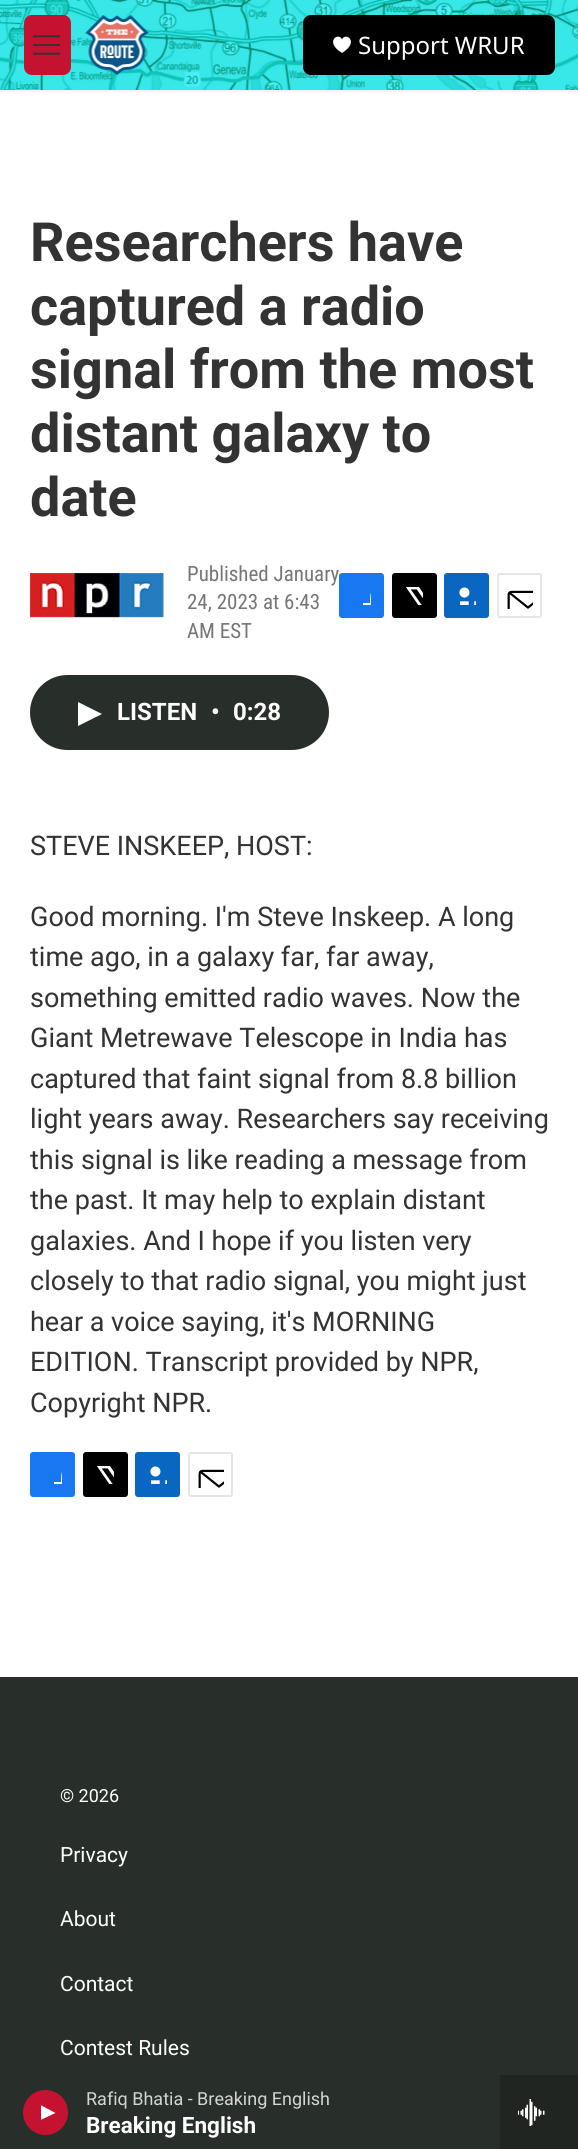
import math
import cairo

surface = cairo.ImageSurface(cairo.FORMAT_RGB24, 578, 2149)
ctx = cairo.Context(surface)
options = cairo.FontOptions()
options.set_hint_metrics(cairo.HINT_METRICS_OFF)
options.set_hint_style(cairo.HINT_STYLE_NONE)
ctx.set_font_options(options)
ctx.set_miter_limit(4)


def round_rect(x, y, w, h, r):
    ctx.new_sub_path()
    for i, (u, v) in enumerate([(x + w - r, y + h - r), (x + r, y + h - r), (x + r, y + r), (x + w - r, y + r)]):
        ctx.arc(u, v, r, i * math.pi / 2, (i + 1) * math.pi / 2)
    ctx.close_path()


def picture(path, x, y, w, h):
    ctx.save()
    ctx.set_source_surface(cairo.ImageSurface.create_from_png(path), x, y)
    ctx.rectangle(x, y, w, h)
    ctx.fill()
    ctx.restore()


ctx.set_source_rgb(1, 1, 1)
ctx.paint()
ctx.set_source_rgb(0.961, 0.961, 0.961)
ctx.rectangle(0, 90, 578, 2)
ctx.fill()
picture("img1.png", 0, 0, 578, 90)
ctx.set_source_rgb(0.769, 0.071, 0.188)
round_rect(24, 15, 47, 60, 8)
ctx.fill()
picture("img2.png", 33, 35, 27, 20)
picture("img3.png", 85, 15, 64, 60)
ctx.set_source_rgb(0, 0, 0)
round_rect(303, 15, 252, 60, 8)
ctx.fill()
ctx.set_source_rgb(1, 1, 1)
ctx.new_path()
ctx.move_to(342, 39.5)
ctx.curve_to(339, 31.5, 323.5, 41.5, 342, 53)
ctx.curve_to(360.5, 41.5, 345, 31.5, 342, 39.5)
ctx.close_path()
ctx.fill()
ctx.select_font_face("Noto Sans")
ctx.set_font_size(24)
ctx.move_to(358, 54)
ctx.show_text("Support WRUR")
ctx.set_source_rgb(0.157, 0.18, 0.165)
ctx.rectangle(0, 2075, 500, 74)
ctx.fill()
ctx.set_source_rgb(0.769, 0.071, 0.188)
ctx.arc(45.5, 2112.5, 22.5, 0, 2 * math.pi)
ctx.fill()
ctx.save()
ctx.rectangle(41, 2105, 15, 16)
ctx.clip()
ctx.set_source_rgb(1, 1, 1)
ctx.new_path()
ctx.move_to(40.5, 2105)
ctx.line_to(55.5, 2113)
ctx.line_to(40.5, 2120)
ctx.close_path()
ctx.fill()
ctx.restore()
ctx.select_font_face("Roboto")
ctx.set_font_size(18)
ctx.set_source_rgb(0.831, 0.835, 0.831)
ctx.move_to(86, 2105)
ctx.show_text("Rafiq Bhatia - Breaking English")
ctx.select_font_face("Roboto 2", cairo.FONT_SLANT_NORMAL, cairo.FONT_WEIGHT_BOLD)
ctx.set_font_size(22.5)
ctx.set_source_rgb(1, 1, 1)
ctx.move_to(86, 2133)
ctx.show_text("Breaking English")
ctx.set_source_rgb(0.125, 0.145, 0.133)
ctx.rectangle(500, 2075, 78, 74)
ctx.fill()
picture("img4.png", 518, 2099, 27, 27)
ctx.select_font_face("Roboto", cairo.FONT_SLANT_NORMAL, cairo.FONT_WEIGHT_BOLD)
ctx.set_font_size(54)
ctx.set_source_rgb(0.2, 0.2, 0.2)
ctx.move_to(30, 261)
ctx.show_text("Researchers have")
ctx.move_to(30, 325)
ctx.show_text("captured a radio")
ctx.move_to(30, 388)
ctx.show_text("signal from the most")
ctx.move_to(30, 452)
ctx.show_text("distant galaxy to")
ctx.move_to(30, 516)
ctx.show_text("date")
picture("img5.png", 30, 573, 134, 45)
ctx.select_font_face("Roboto Condensed")
ctx.set_font_size(21)
ctx.set_source_rgb(0.463, 0.463, 0.463)
ctx.move_to(187, 581)
ctx.show_text("Published January")
ctx.move_to(187, 609)
ctx.show_text("24, 2023 at 6:43")
ctx.move_to(187, 638)
ctx.show_text("AM EST")
ctx.set_source_rgb(0.09, 0.471, 0.949)
round_rect(339, 573, 45, 45, 3)
ctx.fill()
ctx.save()
ctx.rectangle(353, 587, 18, 18)
ctx.clip()
ctx.set_source_rgb(1, 1, 1)
ctx.new_path()
ctx.move_to(377, 618)
ctx.line_to(370, 618)
ctx.line_to(370, 611)
ctx.line_to(363, 611)
ctx.line_to(363, 603)
ctx.line_to(370, 603)
ctx.curve_to(370, 591.5, 371, 585.5, 384, 587)
ctx.line_to(384, 594)
ctx.curve_to(376, 594, 377, 596.5, 377, 603)
ctx.line_to(384, 603)
ctx.line_to(383, 611)
ctx.line_to(377, 611)
ctx.close_path()
ctx.fill()
ctx.restore()
ctx.set_source_rgb(0, 0, 0)
round_rect(392, 573, 45, 45, 3)
ctx.fill()
picture("img6.png", 406, 587, 17, 18)
ctx.set_source_rgb(0.039, 0.4, 0.757)
round_rect(444, 573, 45, 45, 3)
ctx.fill()
picture("img7.png", 459, 587, 17, 18)
round_rect(498, 574, 43, 43, 2)
ctx.set_source_rgb(0.902, 0.902, 0.902)
ctx.stroke()
picture("img8.png", 507, 590, 26, 19)
ctx.set_source_rgb(0.157, 0.18, 0.165)
round_rect(30, 675, 299, 75, 37.5)
ctx.fill()
ctx.set_source_rgb(1, 1, 1)
ctx.new_path()
ctx.move_to(78, 702)
ctx.line_to(102, 714)
ctx.line_to(78, 726)
ctx.close_path()
ctx.fill()
ctx.select_font_face("Roboto 2", cairo.FONT_SLANT_NORMAL, cairo.FONT_WEIGHT_BOLD)
ctx.set_font_size(24)
ctx.move_to(117, 720)
ctx.show_text("LISTEN")
ctx.move_to(211, 720)
ctx.show_text("•")
ctx.move_to(233, 720)
ctx.show_text("0:28")
ctx.select_font_face("Roboto")
ctx.set_font_size(27)
ctx.set_source_rgb(0.2, 0.2, 0.2)
ctx.move_to(30, 855)
ctx.show_text("STEVE INSKEEP, HOST:")
ctx.move_to(30, 926)
ctx.show_text("Good morning. I'm Steve Inskeep. A long")
ctx.move_to(30, 966)
ctx.show_text("time ago, in a galaxy far, far away,")
ctx.move_to(30, 1007)
ctx.show_text("something emitted radio waves. Now the")
ctx.move_to(30, 1047)
ctx.show_text("Giant Metrewave Telescope in India has")
ctx.move_to(30, 1088)
ctx.show_text("captured that faint signal from 8.8 billion")
ctx.move_to(30, 1128)
ctx.show_text("light years away. Researchers say receiving")
ctx.move_to(30, 1169)
ctx.show_text("this signal is like reading a message from")
ctx.move_to(30, 1209)
ctx.show_text("the past. It may help to explain distant")
ctx.move_to(30, 1250)
ctx.show_text("galaxies. And I hope if you listen very")
ctx.move_to(30, 1290)
ctx.show_text("closely to that radio signal, you might just")
ctx.move_to(30, 1331)
ctx.show_text("hear a voice saying, it's MORNING")
ctx.move_to(30, 1371)
ctx.show_text("EDITION. Transcript provided by NPR,")
ctx.move_to(30, 1412)
ctx.show_text("Copyright NPR.")
ctx.set_source_rgb(0.09, 0.471, 0.949)
round_rect(30, 1452, 45, 45, 3)
ctx.fill()
ctx.save()
ctx.rectangle(44, 1466, 18, 18)
ctx.clip()
ctx.set_source_rgb(1, 1, 1)
ctx.new_path()
ctx.move_to(68, 1497)
ctx.line_to(61, 1497)
ctx.line_to(61, 1490)
ctx.line_to(54, 1490)
ctx.line_to(54, 1482)
ctx.line_to(61, 1482)
ctx.curve_to(61, 1470.5, 62, 1464.5, 75, 1466)
ctx.line_to(75, 1473)
ctx.curve_to(67, 1473, 68, 1475.5, 68, 1482)
ctx.line_to(75, 1482)
ctx.line_to(74, 1490)
ctx.line_to(68, 1490)
ctx.close_path()
ctx.fill()
ctx.restore()
ctx.set_source_rgb(0, 0, 0)
round_rect(83, 1452, 45, 45, 3)
ctx.fill()
picture("img6.png", 97, 1466, 17, 18)
ctx.set_source_rgb(0.039, 0.4, 0.757)
round_rect(135, 1452, 45, 45, 3)
ctx.fill()
picture("img7.png", 150, 1466, 17, 18)
round_rect(189, 1453, 43, 43, 2)
ctx.set_source_rgb(0.902, 0.902, 0.902)
ctx.stroke()
picture("img8.png", 198, 1469, 26, 19)
ctx.set_source_rgb(0.157, 0.18, 0.165)
ctx.rectangle(0, 1677, 578, 398)
ctx.fill()
ctx.set_font_size(18)
ctx.set_source_rgb(1, 1, 1)
ctx.move_to(60, 1802)
ctx.show_text("© 2026")
ctx.set_font_size(21)
ctx.move_to(60, 1862)
ctx.show_text("Privacy")
ctx.move_to(60, 1926)
ctx.show_text("About")
ctx.move_to(60, 1991)
ctx.show_text("Contact")
ctx.move_to(60, 2055)
ctx.show_text("Contest Rules")
surface.write_to_png("page.png")
